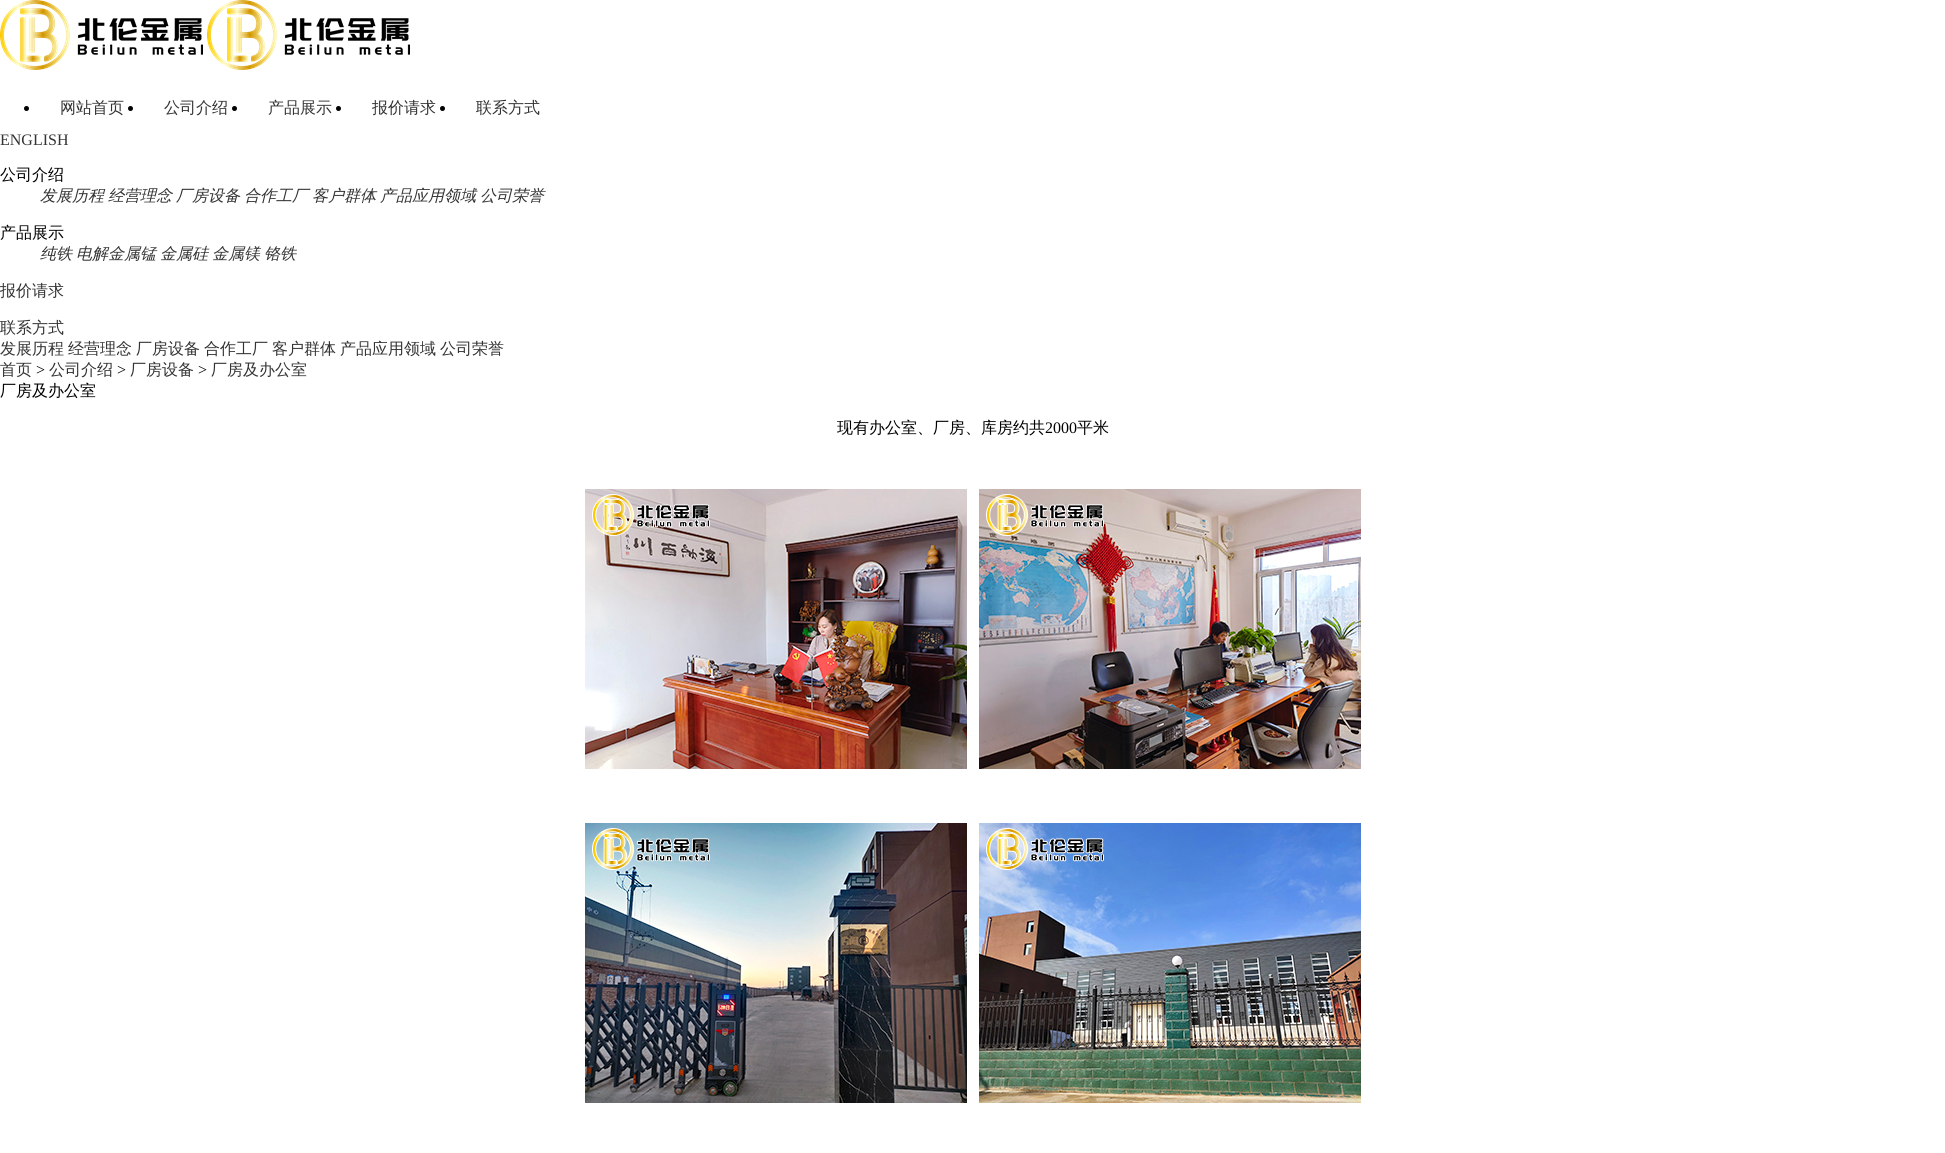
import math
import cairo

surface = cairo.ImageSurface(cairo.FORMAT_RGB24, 1945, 1153)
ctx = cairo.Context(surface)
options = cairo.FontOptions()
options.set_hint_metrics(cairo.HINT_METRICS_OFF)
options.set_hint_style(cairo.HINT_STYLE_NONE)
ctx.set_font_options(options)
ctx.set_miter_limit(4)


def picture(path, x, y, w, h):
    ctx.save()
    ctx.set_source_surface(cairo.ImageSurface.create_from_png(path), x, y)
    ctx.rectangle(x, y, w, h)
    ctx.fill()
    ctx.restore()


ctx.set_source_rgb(1, 1, 1)
ctx.paint()
picture("img1.png", 0, 0, 203, 70)
picture("img1.png", 207, 0, 203, 70)
ctx.set_source_rgb(0, 0, 0)
ctx.arc(26.5, 108.5, 2.5, 0, 2 * math.pi)
ctx.fill()
ctx.select_font_face("WenQuanYi Zen Hei Medium")
ctx.set_font_size(16)
ctx.set_source_rgb(0.2, 0.2, 0.2)
ctx.move_to(60, 113)
ctx.show_text("网站首页")
ctx.set_source_rgb(0, 0, 0)
ctx.new_path()
ctx.arc(130.5, 108.5, 2.5, 0, 2 * math.pi)
ctx.fill()
ctx.set_source_rgb(0.2, 0.2, 0.2)
ctx.move_to(164, 113)
ctx.show_text("公司介绍")
ctx.set_source_rgb(0, 0, 0)
ctx.new_path()
ctx.arc(234.5, 108.5, 2.5, 0, 2 * math.pi)
ctx.fill()
ctx.set_source_rgb(0.2, 0.2, 0.2)
ctx.move_to(268, 113)
ctx.show_text("产品展示")
ctx.set_source_rgb(0, 0, 0)
ctx.new_path()
ctx.arc(338.5, 108.5, 2.5, 0, 2 * math.pi)
ctx.fill()
ctx.set_source_rgb(0.2, 0.2, 0.2)
ctx.move_to(372, 113)
ctx.show_text("报价请求")
ctx.set_source_rgb(0, 0, 0)
ctx.new_path()
ctx.arc(442.5, 108.5, 2.5, 0, 2 * math.pi)
ctx.fill()
ctx.set_source_rgb(0.2, 0.2, 0.2)
ctx.move_to(476, 113)
ctx.show_text("联系方式")
ctx.select_font_face("Liberation Serif")
ctx.move_to(0, 145)
ctx.show_text("ENGLISH")
ctx.select_font_face("WenQuanYi Zen Hei Medium")
ctx.set_source_rgb(0, 0, 0)
ctx.move_to(0, 180)
ctx.show_text("公司介绍")
ctx.select_font_face("WenQuanYi Zen Hei Medium", cairo.FONT_SLANT_ITALIC)
ctx.set_source_rgb(0.2, 0.2, 0.2)
ctx.move_to(40, 201)
ctx.show_text("发展历程")
ctx.move_to(108, 201)
ctx.show_text("经营理念")
ctx.move_to(176, 201)
ctx.show_text("厂房设备")
ctx.move_to(244, 201)
ctx.show_text("合作工厂")
ctx.move_to(312, 201)
ctx.show_text("客户群体")
ctx.move_to(380, 201)
ctx.show_text("产品应用领域")
ctx.move_to(480, 201)
ctx.show_text("公司荣誉")
ctx.select_font_face("WenQuanYi Zen Hei Medium")
ctx.set_source_rgb(0, 0, 0)
ctx.move_to(0, 238)
ctx.show_text("产品展示")
ctx.select_font_face("WenQuanYi Zen Hei Medium", cairo.FONT_SLANT_ITALIC)
ctx.set_source_rgb(0.2, 0.2, 0.2)
ctx.move_to(40, 259)
ctx.show_text("纯铁")
ctx.move_to(76, 259)
ctx.show_text("电解金属锰")
ctx.move_to(160, 259)
ctx.show_text("金属硅")
ctx.move_to(212, 259)
ctx.show_text("金属镁")
ctx.move_to(264, 259)
ctx.show_text("铬铁")
ctx.select_font_face("WenQuanYi Zen Hei Medium")
ctx.move_to(0, 296)
ctx.show_text("报价请求")
ctx.move_to(0, 333)
ctx.show_text("联系方式")
ctx.move_to(0, 354)
ctx.show_text("发展历程")
ctx.move_to(68, 354)
ctx.show_text("经营理念")
ctx.move_to(136, 354)
ctx.show_text("厂房设备")
ctx.move_to(204, 354)
ctx.show_text("合作工厂")
ctx.move_to(272, 354)
ctx.show_text("客户群体")
ctx.move_to(340, 354)
ctx.show_text("产品应用领域")
ctx.move_to(440, 354)
ctx.show_text("公司荣誉")
ctx.move_to(0, 375)
ctx.show_text("首页")
ctx.select_font_face("Liberation Serif")
ctx.set_source_rgb(0, 0, 0)
ctx.move_to(36, 375)
ctx.show_text(">")
ctx.select_font_face("WenQuanYi Zen Hei Medium")
ctx.set_source_rgb(0.2, 0.2, 0.2)
ctx.move_to(49, 375)
ctx.show_text("公司介绍")
ctx.select_font_face("Liberation Serif")
ctx.set_source_rgb(0, 0, 0)
ctx.move_to(117, 375)
ctx.show_text(">")
ctx.select_font_face("WenQuanYi Zen Hei Medium")
ctx.set_source_rgb(0.2, 0.2, 0.2)
ctx.move_to(130, 375)
ctx.show_text("厂房设备")
ctx.select_font_face("Liberation Serif")
ctx.set_source_rgb(0, 0, 0)
ctx.move_to(198, 375)
ctx.show_text(">")
ctx.select_font_face("WenQuanYi Zen Hei Medium")
ctx.set_source_rgb(0.2, 0.2, 0.2)
ctx.move_to(211, 375)
ctx.show_text("厂房及办公室")
ctx.set_source_rgb(0, 0, 0)
ctx.move_to(0, 396)
ctx.show_text("厂房及办公室")
ctx.move_to(837, 433)
ctx.show_text("现有办公室、厂房、库房约共")
ctx.select_font_face("Liberation Serif")
ctx.move_to(1045, 433)
ctx.show_text("2000")
ctx.select_font_face("WenQuanYi Zen Hei Medium")
ctx.move_to(1077, 433)
ctx.show_text("平米")
picture("img2.png", 585, 489, 382, 280)
picture("img3.png", 979, 489, 382, 280)
picture("img4.png", 585, 823, 382, 280)
picture("img5.png", 979, 823, 382, 280)
surface.write_to_png("page.png")
